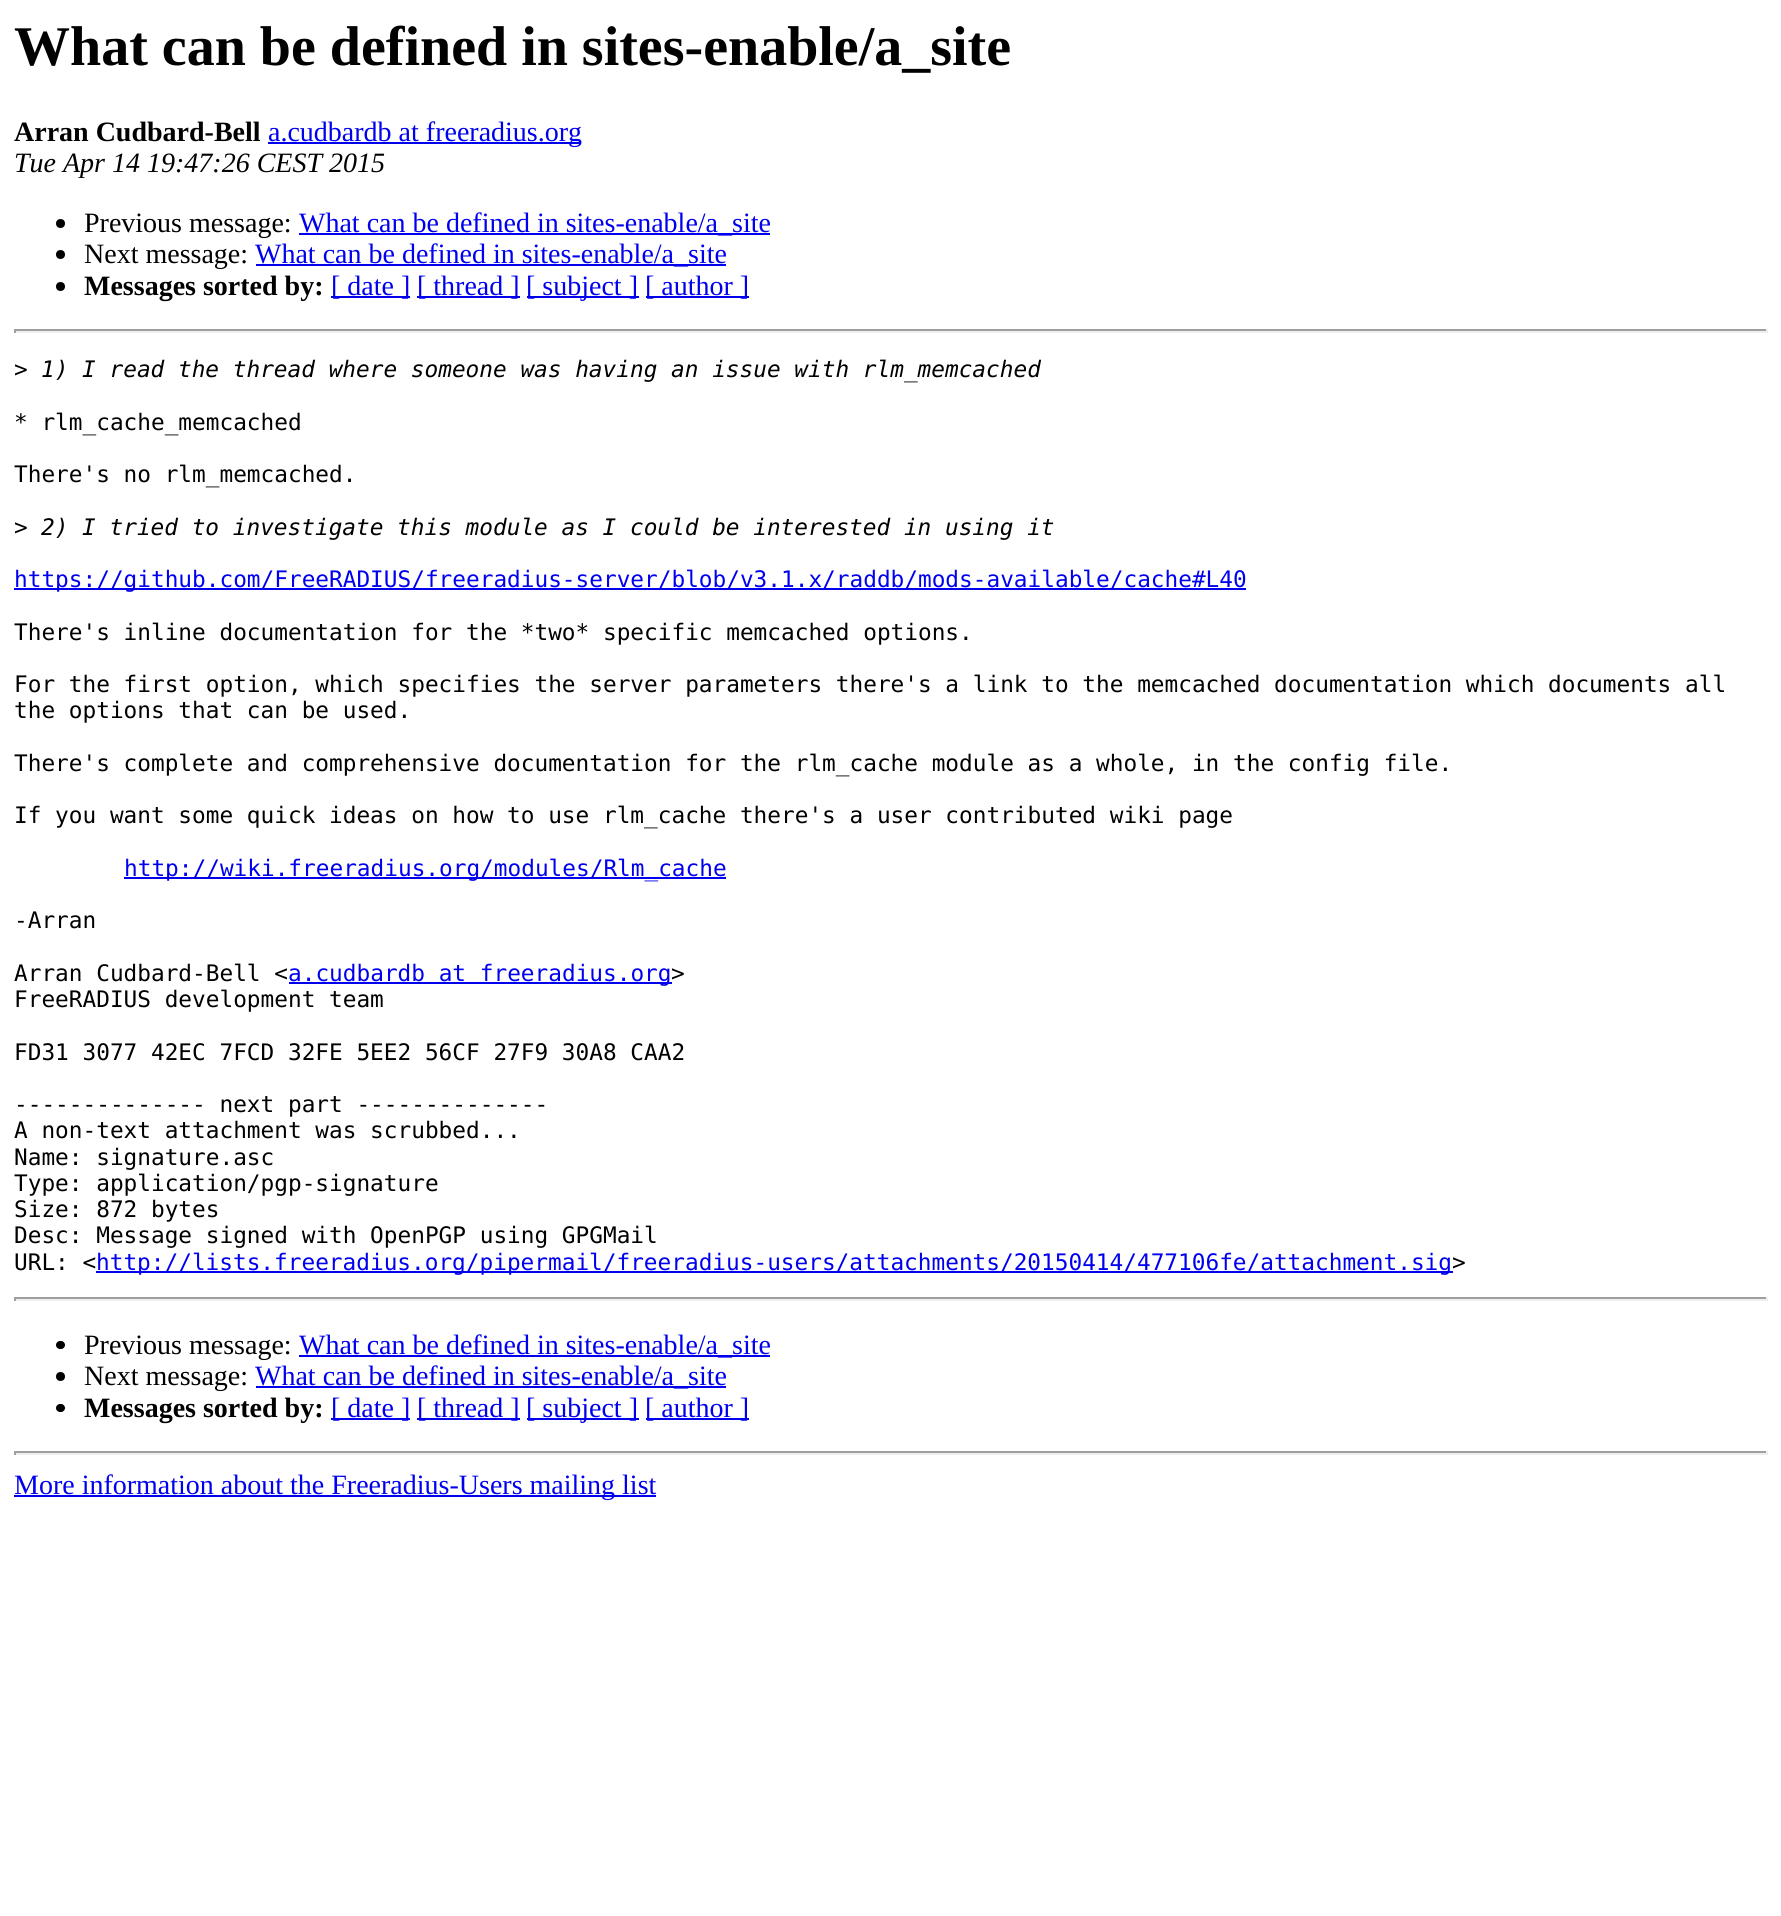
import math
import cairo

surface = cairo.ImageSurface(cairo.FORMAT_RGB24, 1781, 1916)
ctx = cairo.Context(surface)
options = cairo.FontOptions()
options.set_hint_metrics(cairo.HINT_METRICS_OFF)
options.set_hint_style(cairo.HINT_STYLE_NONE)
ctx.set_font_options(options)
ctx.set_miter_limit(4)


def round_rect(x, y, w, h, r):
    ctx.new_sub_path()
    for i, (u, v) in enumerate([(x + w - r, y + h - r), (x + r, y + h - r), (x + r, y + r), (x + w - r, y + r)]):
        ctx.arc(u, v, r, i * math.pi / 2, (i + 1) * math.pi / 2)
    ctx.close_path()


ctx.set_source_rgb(1, 1, 1)
ctx.paint()
ctx.select_font_face("Liberation Serif", cairo.FONT_SLANT_NORMAL, cairo.FONT_WEIGHT_BOLD)
ctx.set_font_size(56)
ctx.set_source_rgb(0, 0, 0)
ctx.move_to(14, 65)
ctx.show_text("What can be defined in sites-enable/a_site")
ctx.set_font_size(28)
ctx.move_to(14, 141)
ctx.show_text("Arran Cudbard-Bell")
ctx.set_source_rgb(0, 0, 0.933)
ctx.rectangle(268, 142, 313, 2)
ctx.fill()
ctx.select_font_face("Liberation Serif")
ctx.move_to(268, 141)
ctx.show_text("a.cudbardb at freeradius.org")
ctx.select_font_face("Liberation Serif", cairo.FONT_SLANT_ITALIC)
ctx.set_source_rgb(0, 0, 0)
ctx.move_to(14, 172)
ctx.show_text("Tue Apr 14 19:47:26 CEST 2015")
ctx.new_path()
ctx.arc(60.5, 223.5, 4.5, 0, 2 * math.pi)
ctx.fill()
ctx.select_font_face("Liberation Serif")
ctx.move_to(84, 232)
ctx.show_text("Previous message:")
ctx.set_source_rgb(0, 0, 0.933)
ctx.rectangle(299, 233, 471, 2)
ctx.fill()
ctx.move_to(299, 232)
ctx.show_text("What can be defined in sites-enable/a_site")
ctx.set_source_rgb(0, 0, 0)
ctx.new_path()
ctx.arc(60.5, 254.5, 4.5, 0, 2 * math.pi)
ctx.fill()
ctx.move_to(84, 263)
ctx.show_text("Next message:")
ctx.set_source_rgb(0, 0, 0.933)
ctx.rectangle(256, 264, 470, 2)
ctx.fill()
ctx.move_to(255, 263)
ctx.show_text("What can be defined in sites-enable/a_site")
ctx.set_source_rgb(0, 0, 0)
ctx.new_path()
ctx.arc(60.5, 286.5, 4.5, 0, 2 * math.pi)
ctx.fill()
ctx.select_font_face("Liberation Serif", cairo.FONT_SLANT_NORMAL, cairo.FONT_WEIGHT_BOLD)
ctx.move_to(84, 295)
ctx.show_text("Messages sorted by:")
ctx.set_source_rgb(0, 0, 0.933)
ctx.rectangle(331, 296, 79, 2)
ctx.fill()
ctx.select_font_face("Liberation Serif")
ctx.move_to(331, 295)
ctx.show_text("[ date ]")
ctx.rectangle(417, 296, 103, 2)
ctx.fill()
ctx.move_to(417, 295)
ctx.show_text("[ thread ]")
ctx.rectangle(527, 296, 112, 2)
ctx.fill()
ctx.move_to(526, 295)
ctx.show_text("[ subject ]")
ctx.rectangle(646, 296, 103, 2)
ctx.fill()
ctx.move_to(645, 295)
ctx.show_text("[ author ]")
ctx.set_source_rgb(0.624, 0.624, 0.624)
ctx.rectangle(14, 329, 1754, 2)
ctx.fill()
ctx.set_source_rgb(0.933, 0.933, 0.933)
ctx.rectangle(1766, 329, 2, 4)
ctx.fill()
ctx.rectangle(14, 331, 1754, 2)
ctx.fill()
ctx.set_source_rgb(0.624, 0.624, 0.624)
ctx.rectangle(14, 329, 2, 4)
ctx.fill()
ctx.select_font_face("DejaVu Sans Mono")
ctx.set_font_size(22.75)
ctx.set_source_rgb(0, 0, 0)
ctx.move_to(14, 377)
ctx.show_text(">")
ctx.select_font_face("DejaVu Sans Mono", cairo.FONT_SLANT_ITALIC)
ctx.move_to(41, 377)
ctx.show_text("1) I read the thread where someone was having an issue with rlm_memcached")
ctx.select_font_face("DejaVu Sans Mono")
ctx.move_to(14, 430)
ctx.show_text("* rlm_cache_memcached")
ctx.move_to(14, 482)
ctx.show_text("There's no rlm_memcached.")
ctx.move_to(14, 535)
ctx.show_text(">")
ctx.select_font_face("DejaVu Sans Mono", cairo.FONT_SLANT_ITALIC)
ctx.move_to(41, 535)
ctx.show_text("2) I tried to investigate this module as I could be interested in using it")
ctx.set_source_rgb(0, 0, 0.933)
ctx.rectangle(14, 588, 1232, 2)
ctx.fill()
ctx.select_font_face("DejaVu Sans Mono")
ctx.move_to(14, 587)
ctx.show_text("https://github.com/FreeRADIUS/freeradius-server/blob/v3.1.x/raddb/mods-available/cache#L40")
ctx.set_source_rgb(0, 0, 0)
ctx.move_to(14, 640)
ctx.show_text("There's inline documentation for the *two* specific memcached options.")
ctx.move_to(14, 692)
ctx.show_text("For the first option, which specifies the server parameters there's a link to the memcached documentation which documents all")
ctx.move_to(14, 718)
ctx.show_text("the options that can be used.")
ctx.move_to(14, 771)
ctx.show_text("There's complete and comprehensive documentation for the rlm_cache module as a whole, in the config file.")
ctx.move_to(14, 823)
ctx.show_text("If you want some quick ideas on how to use rlm_cache there's a user contributed wiki page")
ctx.set_source_rgb(0, 0, 0.933)
ctx.rectangle(124, 877, 602, 2)
ctx.fill()
ctx.move_to(124, 876)
ctx.show_text("http://wiki.freeradius.org/modules/Rlm_cache")
ctx.set_source_rgb(0, 0, 0)
ctx.move_to(14, 928)
ctx.show_text("-Arran")
ctx.move_to(14, 981)
ctx.show_text("Arran Cudbard-Bell <")
ctx.set_source_rgb(0, 0, 0.933)
ctx.rectangle(289, 982, 383, 2)
ctx.fill()
ctx.move_to(288, 981)
ctx.show_text("a.cudbardb at freeradius.org")
ctx.set_source_rgb(0, 0, 0)
ctx.move_to(671, 981)
ctx.show_text(">")
ctx.move_to(14, 1007)
ctx.show_text("FreeRADIUS development team")
ctx.move_to(14, 1060)
ctx.show_text("FD31 3077 42EC 7FCD 32FE 5EE2 56CF 27F9 30A8 CAA2")
ctx.move_to(14, 1112)
ctx.show_text("-------------- next part --------------")
ctx.move_to(14, 1138)
ctx.show_text("A non-text attachment was scrubbed...")
ctx.move_to(14, 1165)
ctx.show_text("Name: signature.asc")
ctx.move_to(14, 1191)
ctx.show_text("Type: application/pgp-signature")
ctx.move_to(14, 1217)
ctx.show_text("Size: 872 bytes")
ctx.move_to(14, 1243)
ctx.show_text("Desc: Message signed with OpenPGP using GPGMail")
ctx.move_to(14, 1270)
ctx.show_text("URL: <")
ctx.set_source_rgb(0, 0, 0.933)
ctx.rectangle(96, 1271, 1357, 2)
ctx.fill()
ctx.move_to(96, 1270)
ctx.show_text("http://lists.freeradius.org/pipermail/freeradius-users/attachments/20150414/477106fe/attachment.sig")
ctx.set_source_rgb(0, 0, 0)
ctx.move_to(1452, 1270)
ctx.show_text(">")
ctx.set_source_rgb(0.624, 0.624, 0.624)
ctx.rectangle(14, 1297, 1754, 2)
ctx.fill()
ctx.set_source_rgb(0.933, 0.933, 0.933)
ctx.rectangle(1766, 1297, 2, 4)
ctx.fill()
ctx.rectangle(14, 1299, 1754, 2)
ctx.fill()
ctx.set_source_rgb(0.624, 0.624, 0.624)
ctx.rectangle(14, 1297, 2, 4)
ctx.fill()
ctx.set_source_rgb(0, 0, 0)
round_rect(56, 1341, 9, 8, 4)
ctx.fill()
ctx.select_font_face("Liberation Serif")
ctx.set_font_size(28)
ctx.move_to(84, 1354)
ctx.show_text("Previous message:")
ctx.set_source_rgb(0, 0, 0.933)
ctx.rectangle(299, 1355, 471, 2)
ctx.fill()
ctx.move_to(299, 1354)
ctx.show_text("What can be defined in sites-enable/a_site")
ctx.set_source_rgb(0, 0, 0)
ctx.new_path()
ctx.arc(60.5, 1376.5, 4.5, 0, 2 * math.pi)
ctx.fill()
ctx.move_to(84, 1385)
ctx.show_text("Next message:")
ctx.set_source_rgb(0, 0, 0.933)
ctx.rectangle(256, 1386, 470, 2)
ctx.fill()
ctx.move_to(255, 1385)
ctx.show_text("What can be defined in sites-enable/a_site")
ctx.set_source_rgb(0, 0, 0)
round_rect(56, 1404, 9, 8, 4)
ctx.fill()
ctx.select_font_face("Liberation Serif", cairo.FONT_SLANT_NORMAL, cairo.FONT_WEIGHT_BOLD)
ctx.move_to(84, 1417)
ctx.show_text("Messages sorted by:")
ctx.set_source_rgb(0, 0, 0.933)
ctx.rectangle(331, 1418, 79, 2)
ctx.fill()
ctx.select_font_face("Liberation Serif")
ctx.move_to(331, 1417)
ctx.show_text("[ date ]")
ctx.rectangle(417, 1418, 103, 2)
ctx.fill()
ctx.move_to(417, 1417)
ctx.show_text("[ thread ]")
ctx.rectangle(527, 1418, 112, 2)
ctx.fill()
ctx.move_to(526, 1417)
ctx.show_text("[ subject ]")
ctx.rectangle(646, 1418, 103, 2)
ctx.fill()
ctx.move_to(645, 1417)
ctx.show_text("[ author ]")
ctx.set_source_rgb(0.624, 0.624, 0.624)
ctx.rectangle(14, 1451, 1754, 2)
ctx.fill()
ctx.set_source_rgb(0.933, 0.933, 0.933)
ctx.rectangle(1766, 1451, 2, 4)
ctx.fill()
ctx.rectangle(14, 1453, 1754, 2)
ctx.fill()
ctx.set_source_rgb(0.624, 0.624, 0.624)
ctx.rectangle(14, 1451, 2, 4)
ctx.fill()
ctx.set_source_rgb(0, 0, 0.933)
ctx.rectangle(14, 1495, 642, 2)
ctx.fill()
ctx.move_to(14, 1494)
ctx.show_text("More information about the Freeradius-Users mailing list")
surface.write_to_png("page.png")
